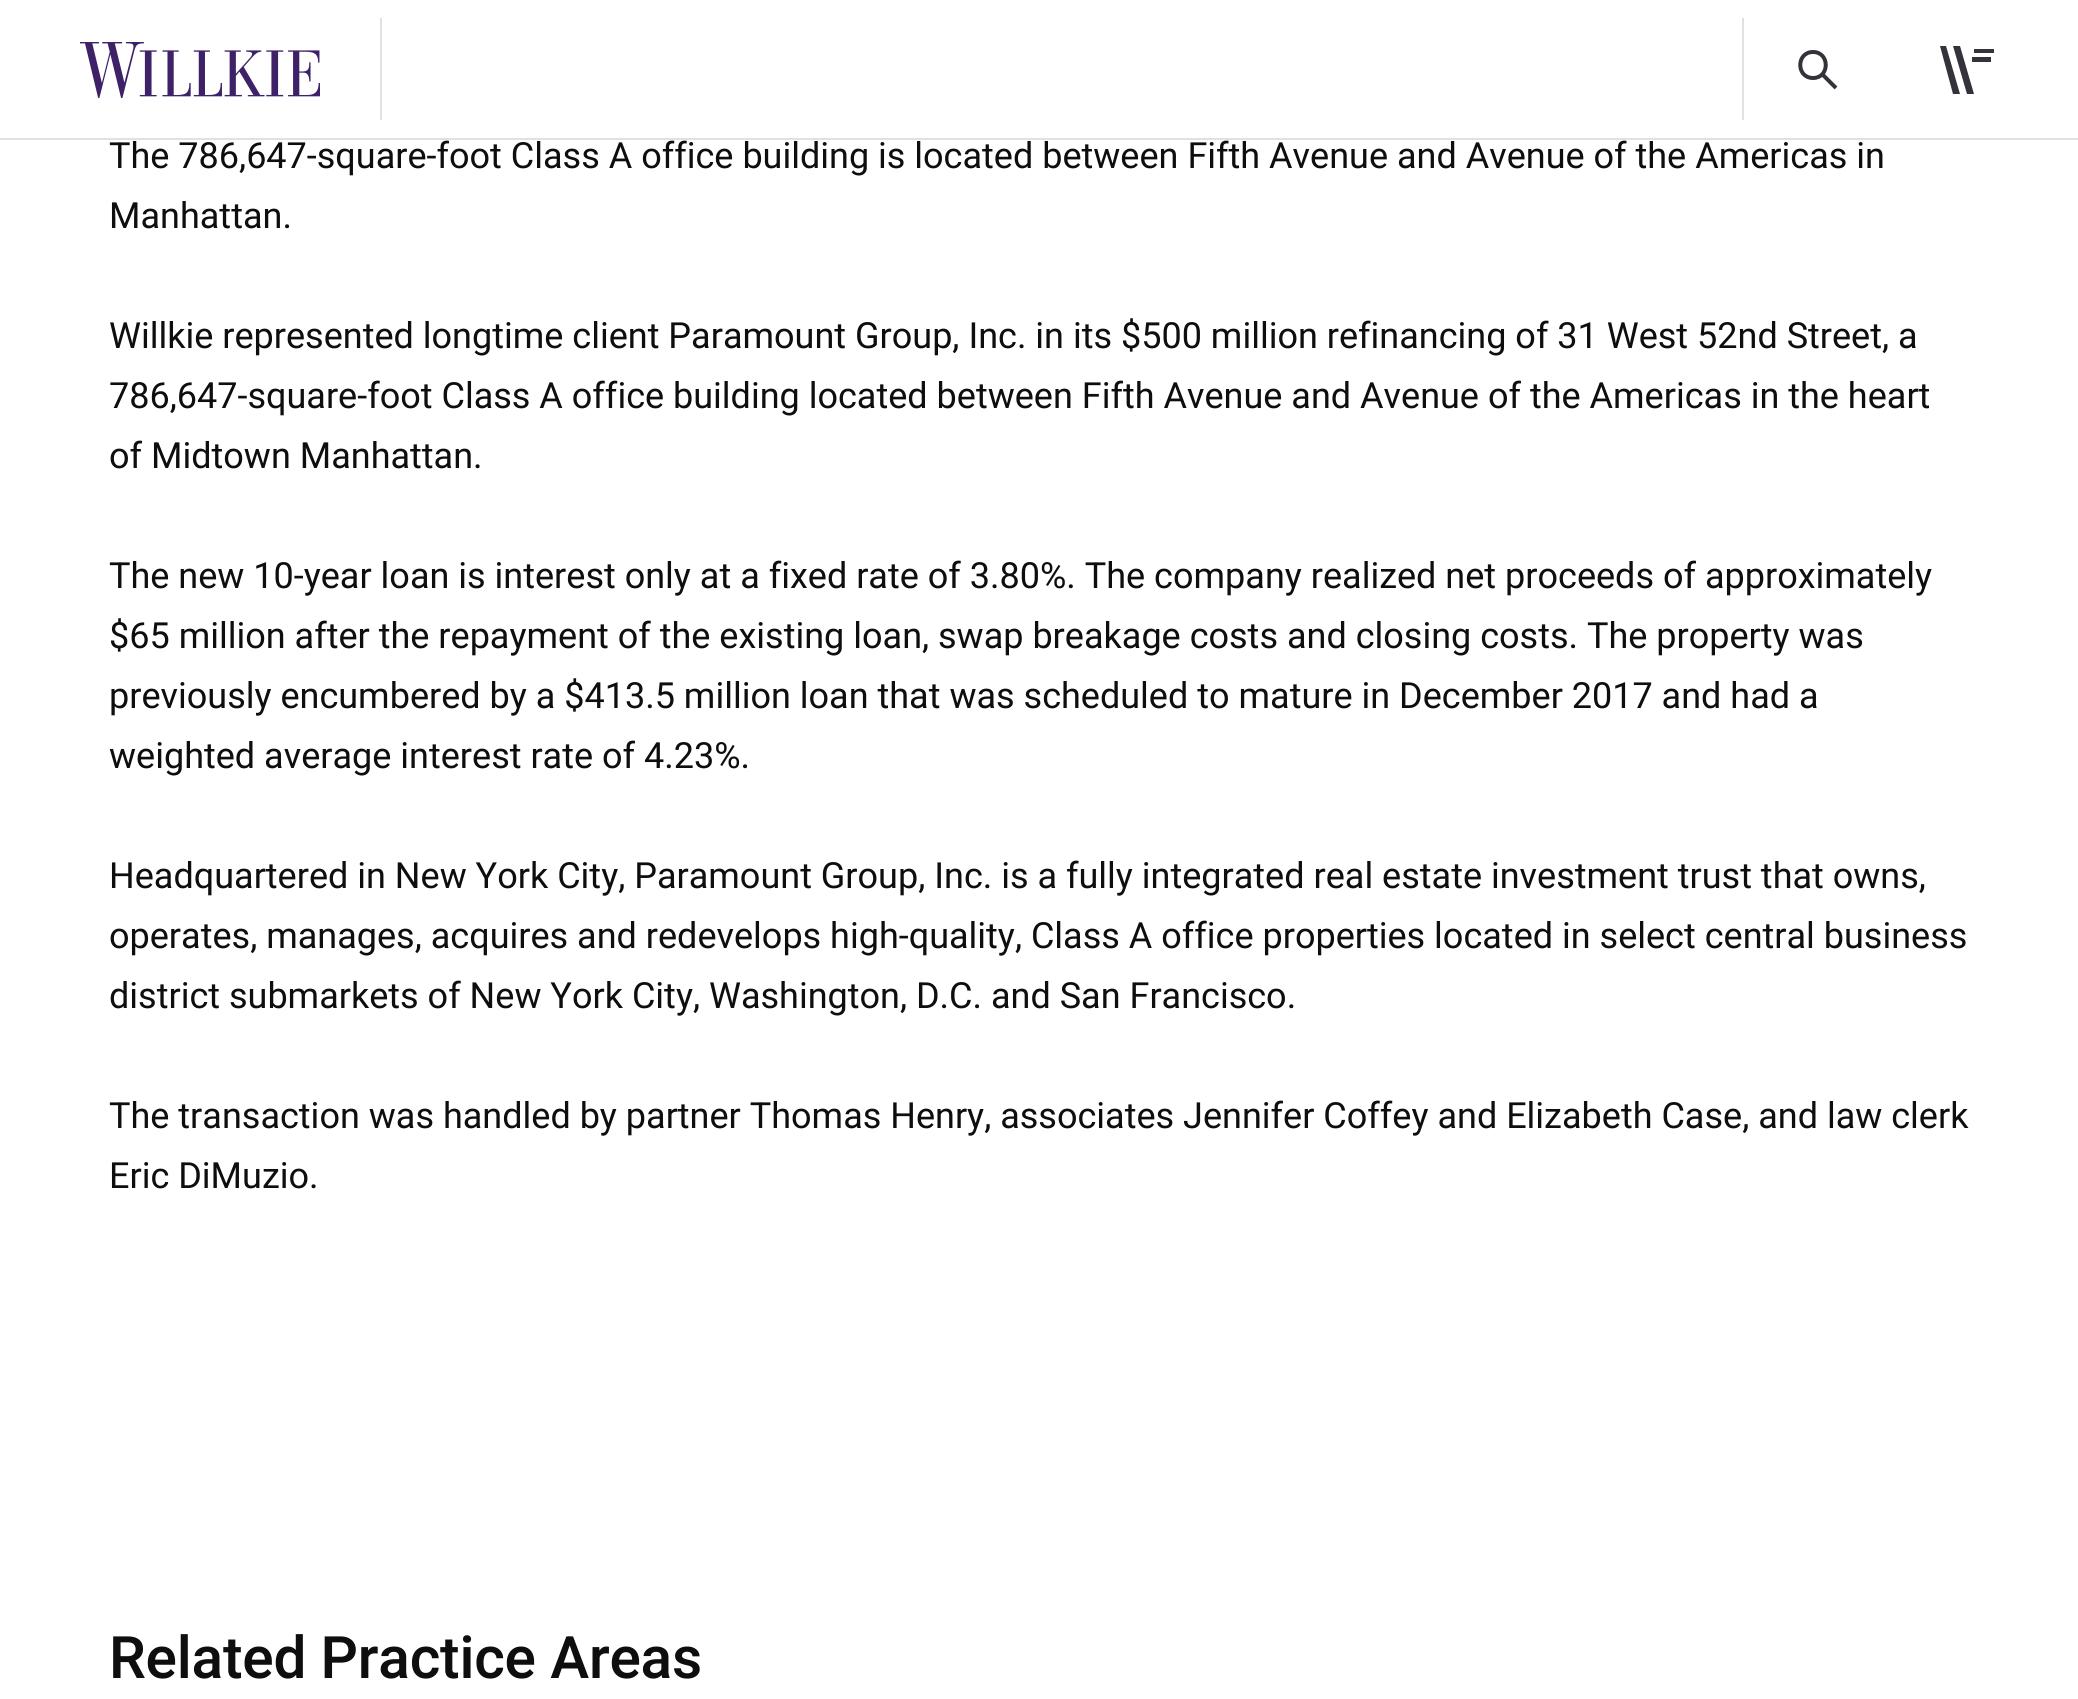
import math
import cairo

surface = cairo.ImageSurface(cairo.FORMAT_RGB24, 2078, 1699)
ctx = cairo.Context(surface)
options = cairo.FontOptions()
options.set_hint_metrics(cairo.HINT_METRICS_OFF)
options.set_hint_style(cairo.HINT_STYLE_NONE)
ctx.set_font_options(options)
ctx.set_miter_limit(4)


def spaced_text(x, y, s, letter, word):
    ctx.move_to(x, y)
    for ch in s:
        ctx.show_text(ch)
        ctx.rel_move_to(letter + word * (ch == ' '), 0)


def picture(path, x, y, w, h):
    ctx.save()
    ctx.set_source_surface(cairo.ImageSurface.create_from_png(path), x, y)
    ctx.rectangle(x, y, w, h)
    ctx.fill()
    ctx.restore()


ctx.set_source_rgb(1, 1, 1)
ctx.paint()
ctx.set_source_rgb(0.882, 0.878, 0.886)
ctx.rectangle(0, 138, 2078, 2)
ctx.fill()
ctx.rectangle(380, 18, 2, 102)
ctx.fill()
picture("img1.png", 80, 42, 240, 56)
ctx.rectangle(1742, 18, 2, 102)
ctx.fill()
ctx.new_path()
ctx.move_to(1822, 74)
ctx.line_to(1836, 88)
ctx.move_to(1813, 52)
ctx.curve_to(1830, 52, 1830, 78, 1813, 78)
ctx.curve_to(1796, 78, 1796, 52, 1813, 52)
ctx.close_path()
ctx.set_source_rgb(0.212, 0.196, 0.231)
ctx.set_line_width(4)
ctx.stroke()
ctx.rectangle(1972, 57, 19, 5)
ctx.fill()
ctx.new_path()
ctx.move_to(1953, 46)
ctx.line_to(1967, 94)
ctx.line_to(1974, 94)
ctx.line_to(1960, 46)
ctx.close_path()
ctx.fill()
ctx.new_path()
ctx.move_to(1940, 46)
ctx.line_to(1953, 94)
ctx.line_to(1960, 94)
ctx.line_to(1946, 46)
ctx.close_path()
ctx.fill()
ctx.rectangle(1974, 49, 20, 4)
ctx.fill()
ctx.select_font_face("Heebo")
ctx.set_font_size(36)
ctx.set_source_rgb(0.055, 0.055, 0.055)
ctx.move_to(109, 168)
ctx.show_text("The 786,647-square-foot Class A office building is located between Fifth Avenue and Avenue of the Americas in")
ctx.move_to(109, 228)
ctx.show_text("Manhattan.")
ctx.move_to(109, 348)
ctx.show_text("Willkie represented longtime client Paramount Group, Inc. in its $500 million refinancing of 31 West 52nd Street, a")
ctx.move_to(109, 408)
ctx.show_text("786,647-square-foot Class A office building located between Fifth Avenue and Avenue of the Americas in the heart")
ctx.move_to(109, 468)
ctx.show_text("of Midtown Manhattan.")
ctx.move_to(109, 588)
ctx.show_text("The new 10-year loan is interest only at a fixed rate of 3.80%. The company realized net proceeds of approximately")
ctx.move_to(109, 648)
ctx.show_text("$65 million after the repayment of the existing loan, swap breakage costs and closing costs. The property was")
ctx.move_to(109, 708)
ctx.show_text("previously encumbered by a $413.5 million loan that was scheduled to mature in December 2017 and had a")
ctx.move_to(109, 768)
ctx.show_text("weighted average interest rate of 4.23%.")
ctx.move_to(109, 888)
ctx.show_text("Headquartered in New York City, Paramount Group, Inc. is a fully integrated real estate investment trust that owns,")
ctx.move_to(109, 948)
ctx.show_text("operates, manages, acquires and redevelops high-quality, Class A office properties located in select central business")
ctx.move_to(109, 1008)
ctx.show_text("district submarkets of New York City, Washington, D.C. and San Francisco.")
ctx.move_to(109, 1128)
ctx.show_text("The transaction was handled by partner Thomas Henry, associates Jennifer Coffey and Elizabeth Case, and law clerk")
ctx.move_to(109, 1188)
ctx.show_text("Eric DiMuzio.")
ctx.select_font_face("Heebo Medium")
ctx.set_font_size(58.5)
spaced_text(109, 1678, "Related Practice Areas", -0.2, 0)
surface.write_to_png("page.png")
